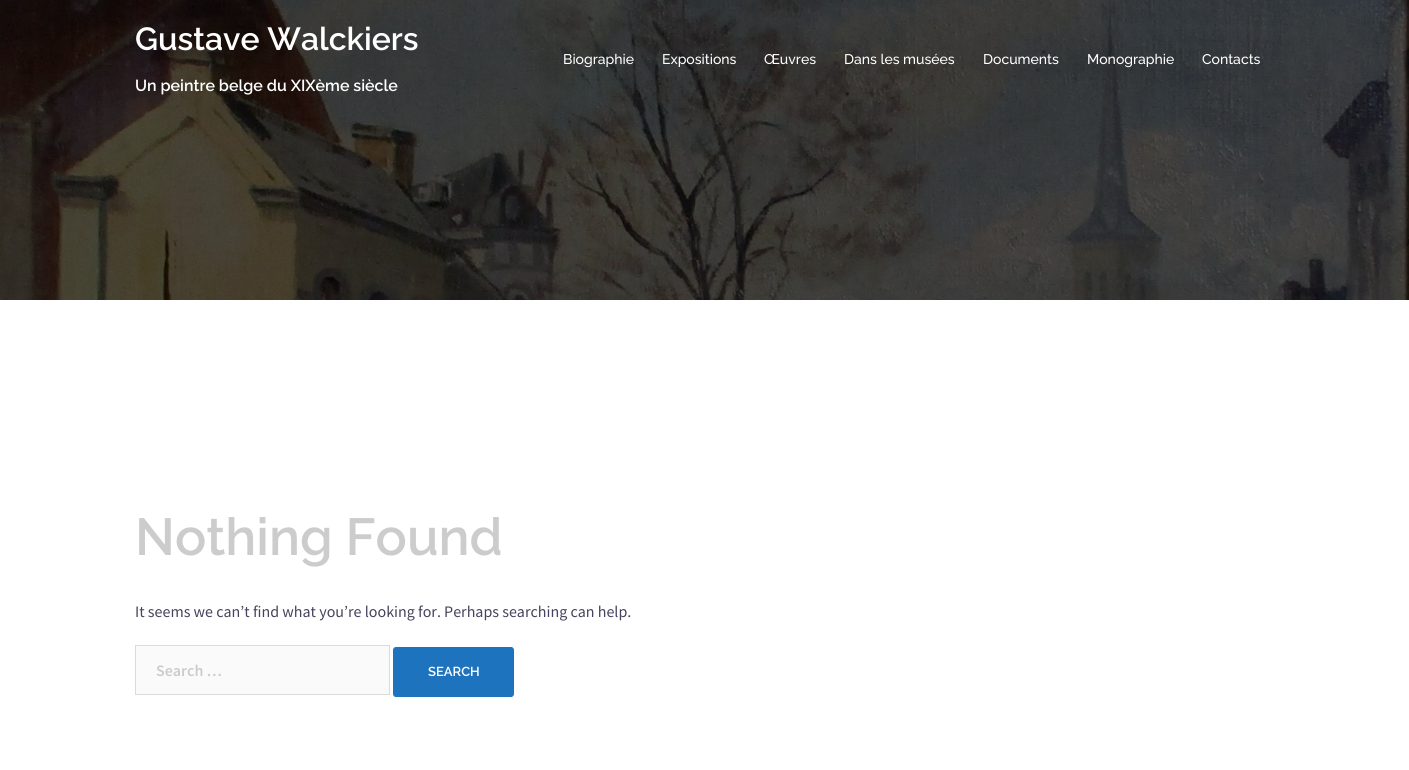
import math
import cairo

surface = cairo.ImageSurface(cairo.FORMAT_RGB24, 1409, 770)
ctx = cairo.Context(surface)
options = cairo.FontOptions()
options.set_hint_metrics(cairo.HINT_METRICS_OFF)
options.set_hint_style(cairo.HINT_STYLE_NONE)
ctx.set_font_options(options)
ctx.set_miter_limit(4)


def round_rect(x, y, w, h, r):
    ctx.new_sub_path()
    for i, (u, v) in enumerate([(x + w - r, y + h - r), (x + r, y + h - r), (x + r, y + r), (x + w - r, y + r)]):
        ctx.arc(u, v, r, i * math.pi / 2, (i + 1) * math.pi / 2)
    ctx.close_path()


def picture(path, x, y, w, h):
    ctx.save()
    ctx.set_source_surface(cairo.ImageSurface.create_from_png(path), x, y)
    ctx.rectangle(x, y, w, h)
    ctx.fill()
    ctx.restore()


ctx.set_source_rgb(1, 1, 1)
ctx.paint()
picture("img1.png", 0, 0, 1409, 300)
ctx.select_font_face("Raleway SemiBold")
ctx.set_font_size(32)
ctx.set_source_rgb(1, 1, 1)
ctx.move_to(135, 50)
ctx.show_text("Gustave Walckiers")
ctx.set_font_size(16)
ctx.move_to(135, 91)
ctx.show_text("Un peintre belge du XIXème siècle")
ctx.select_font_face("Raleway Medium")
ctx.set_font_size(14)
ctx.move_to(563, 64)
ctx.show_text("Biographie")
ctx.move_to(662, 64)
ctx.show_text("Expositions")
ctx.move_to(764, 64)
ctx.show_text("Œuvres")
ctx.move_to(844, 64)
ctx.show_text("Dans les musées")
ctx.move_to(983, 64)
ctx.show_text("Documents")
ctx.move_to(1087, 64)
ctx.show_text("Monographie")
ctx.move_to(1202, 64)
ctx.show_text("Contacts")
ctx.select_font_face("Raleway SemiBold")
ctx.set_font_size(52)
ctx.set_source_rgb(0.8, 0.8, 0.8)
ctx.move_to(135, 555)
ctx.show_text("Nothing Found")
ctx.select_font_face("Source Sans Pro")
ctx.set_font_size(16)
ctx.set_source_rgb(0.278, 0.259, 0.365)
ctx.move_to(135, 617)
ctx.show_text("It seems we can’t find what you’re looking for. Perhaps searching can help.")
ctx.set_source_rgb(0.98, 0.98, 0.98)
ctx.rectangle(135.5, 645.5, 254, 49)
ctx.fill_preserve()
ctx.set_source_rgb(0.859, 0.859, 0.859)
ctx.set_line_width(1)
ctx.stroke()
ctx.select_font_face("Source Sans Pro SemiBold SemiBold")
ctx.set_source_rgb(0.8, 0.8, 0.8)
ctx.move_to(156, 676)
ctx.show_text("Search …")
ctx.set_source_rgb(0.118, 0.451, 0.745)
round_rect(393.5, 647.5, 120, 49, 2.5)
ctx.fill_preserve()
ctx.stroke()
ctx.select_font_face("Raleway SemiBold")
ctx.set_font_size(13)
ctx.set_source_rgb(1, 1, 1)
ctx.move_to(428, 676)
ctx.show_text("SEARCH")
surface.write_to_png("page.png")
